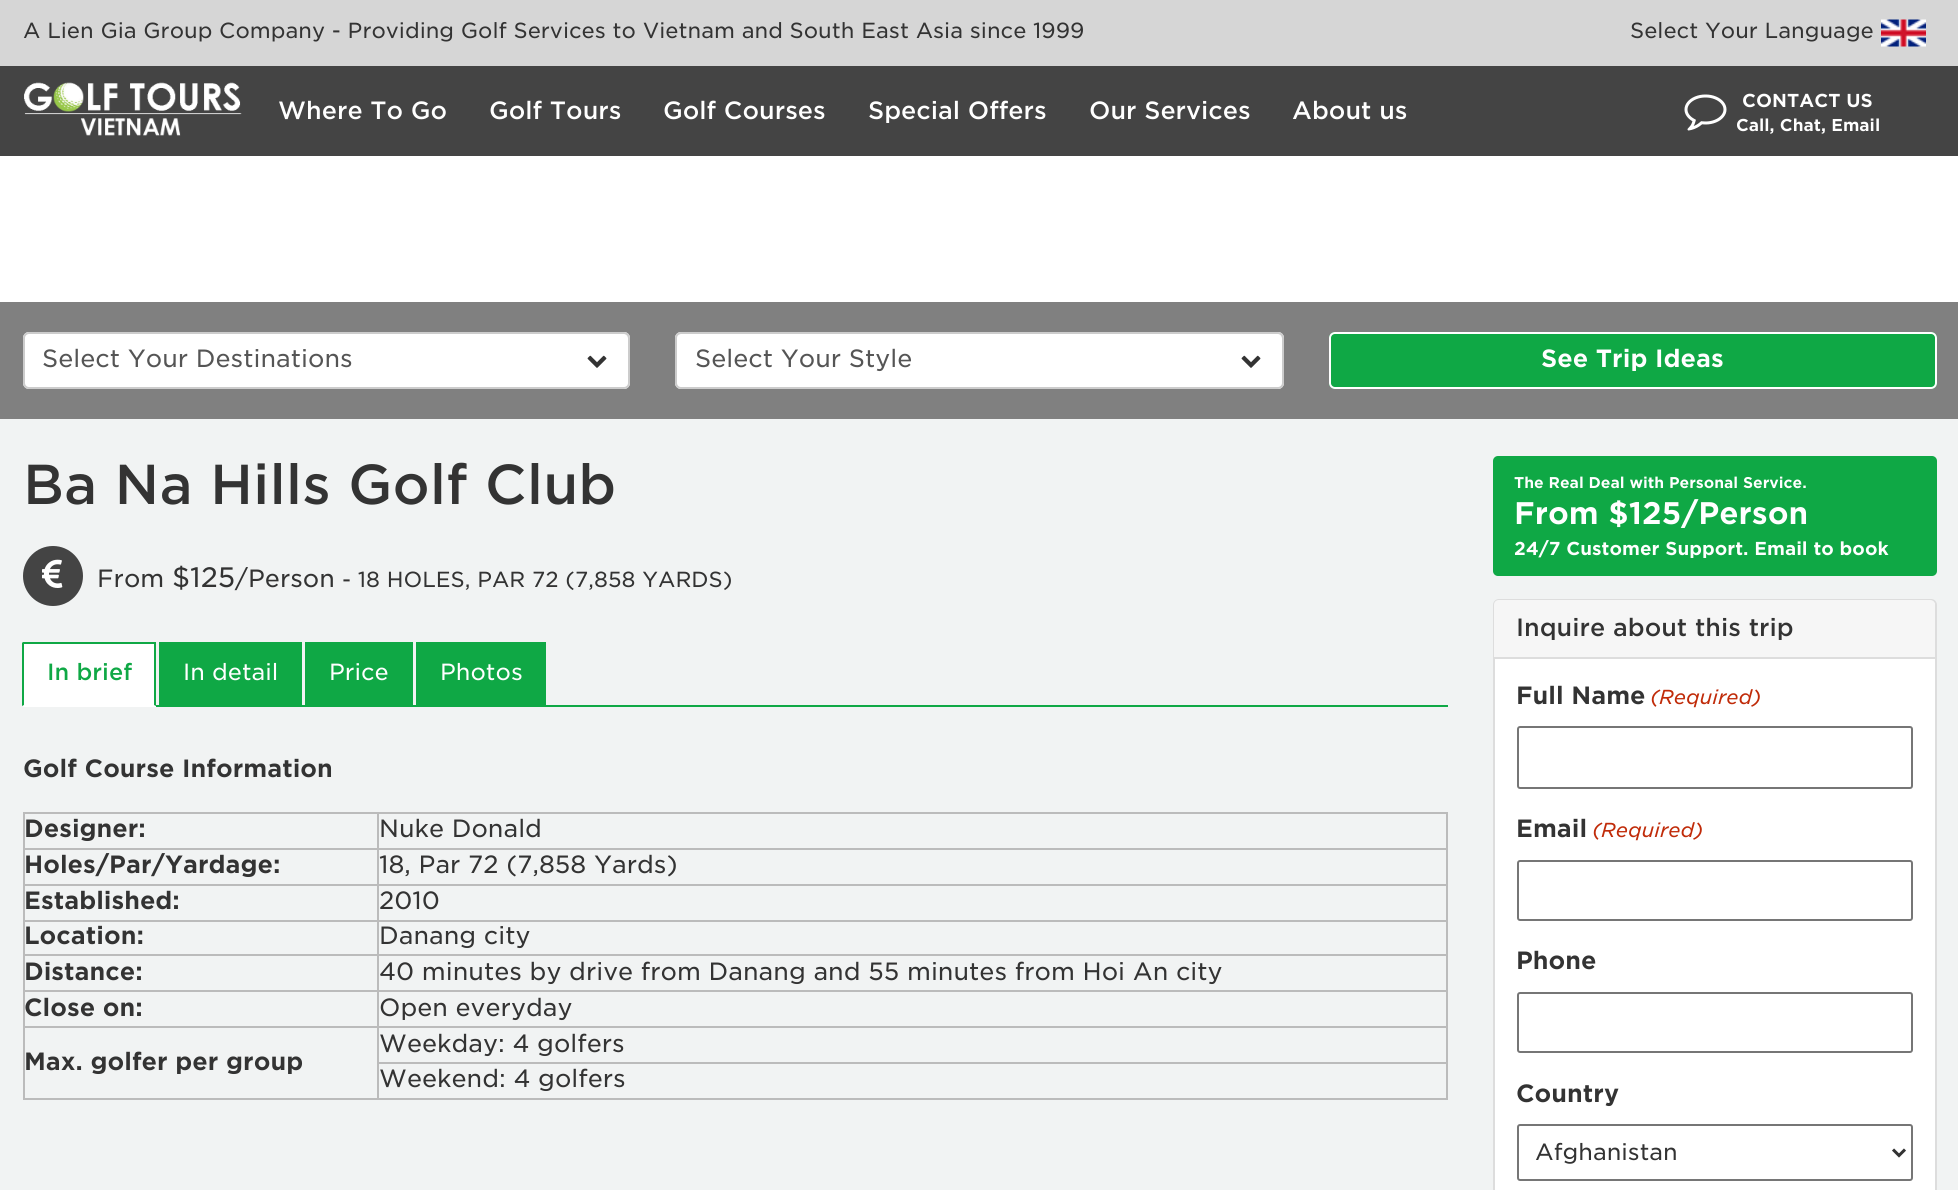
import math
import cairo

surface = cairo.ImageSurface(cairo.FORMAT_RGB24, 1958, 1190)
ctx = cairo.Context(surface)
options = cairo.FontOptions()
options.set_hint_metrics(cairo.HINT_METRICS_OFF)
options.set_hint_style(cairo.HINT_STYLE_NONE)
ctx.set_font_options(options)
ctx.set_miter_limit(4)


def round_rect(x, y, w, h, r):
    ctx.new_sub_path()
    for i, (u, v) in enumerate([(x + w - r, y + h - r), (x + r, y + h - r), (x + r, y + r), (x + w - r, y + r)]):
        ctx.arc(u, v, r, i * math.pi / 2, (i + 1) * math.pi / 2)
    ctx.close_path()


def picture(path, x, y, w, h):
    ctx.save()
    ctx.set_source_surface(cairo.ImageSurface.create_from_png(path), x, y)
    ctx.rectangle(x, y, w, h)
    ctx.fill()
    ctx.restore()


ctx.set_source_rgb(1, 1, 1)
ctx.paint()
ctx.set_source_rgb(0.839, 0.839, 0.839)
ctx.rectangle(0, 0, 1958, 66)
ctx.fill()
ctx.select_font_face("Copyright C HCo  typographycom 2 Light")
ctx.set_font_size(21)
ctx.set_source_rgb(0.2, 0.2, 0.2)
ctx.move_to(23, 38)
ctx.show_text("A Lien Gia Group Company - Providing Golf Services to Vietnam and South East Asia since 1999")
ctx.move_to(1630, 38)
ctx.show_text("Select Your Language")
picture("img1.png", 1881, 19, 45, 28)
ctx.set_source_rgb(0.267, 0.267, 0.267)
ctx.rectangle(0, 66, 1958, 90)
ctx.fill()
picture("img2.png", 24, 82, 218, 54)
ctx.select_font_face("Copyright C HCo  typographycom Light")
ctx.set_font_size(24)
ctx.set_source_rgb(1, 1, 1)
ctx.move_to(278, 119)
ctx.show_text("Where To Go")
ctx.move_to(489, 119)
ctx.show_text("Golf Tours")
ctx.move_to(663, 119)
ctx.show_text("Golf Courses")
ctx.move_to(868, 119)
ctx.show_text("Special Offers")
ctx.move_to(1089, 119)
ctx.show_text("Our Services")
ctx.move_to(1292, 119)
ctx.show_text("About us")
picture("img3.png", 1684, 94, 43, 37)
ctx.select_font_face("Copyright C HCo  typographycom")
ctx.set_font_size(18)
ctx.move_to(1742, 107)
ctx.show_text("CONTACT US")
ctx.set_font_size(16.5)
ctx.move_to(1736, 131)
ctx.show_text("Call, Chat, Email")
ctx.set_source_rgb(0.502, 0.502, 0.502)
ctx.rectangle(0, 302, 1958, 117)
ctx.fill()
ctx.set_source_rgb(1, 1, 1)
round_rect(23, 332, 607, 57, 6)
ctx.fill()
ctx.set_source_rgb(0.925, 0.925, 0.925)
ctx.new_path()
ctx.move_to(28, 334)
ctx.line_to(624, 334)
ctx.curve_to(626, 334, 628, 337, 628, 339)
ctx.line_to(628, 385)
ctx.curve_to(629, 384, 629, 383, 629, 382)
ctx.line_to(629, 338)
ctx.curve_to(629, 335, 627, 333, 624, 333)
ctx.line_to(29, 333)
ctx.curve_to(26, 333, 24, 335, 24, 338)
ctx.line_to(24, 339)
ctx.curve_to(24, 337, 26, 334, 28, 334)
ctx.close_path()
ctx.fill()
round_rect(24, 333, 605, 55, 5)
ctx.set_source_rgb(0.8, 0.8, 0.8)
ctx.stroke()
ctx.select_font_face("Copyright C HCo  typographycom 2 Light")
ctx.set_font_size(24)
ctx.set_source_rgb(0.333, 0.333, 0.333)
ctx.move_to(42, 367)
ctx.show_text("Select Your Destinations")
picture("img4.png", 587, 355, 20, 13)
ctx.set_source_rgb(1, 1, 1)
round_rect(675, 332, 609, 57, 6)
ctx.fill()
ctx.set_source_rgb(0.925, 0.925, 0.925)
ctx.new_path()
ctx.move_to(681, 334)
ctx.line_to(1278, 334)
ctx.curve_to(1280, 334, 1282, 337, 1282, 339)
ctx.line_to(1282, 385)
ctx.curve_to(1283, 384, 1283, 383, 1283, 382)
ctx.line_to(1283, 338)
ctx.curve_to(1283, 335, 1281, 333, 1278, 333)
ctx.line_to(682, 333)
ctx.curve_to(680, 333, 678, 334, 677, 336)
ctx.curve_to(678, 335, 680, 334, 681, 334)
ctx.close_path()
ctx.fill()
round_rect(676, 333, 607, 55, 5)
ctx.set_source_rgb(0.8, 0.8, 0.8)
ctx.stroke()
ctx.set_source_rgb(0.333, 0.333, 0.333)
ctx.move_to(695, 367)
ctx.show_text("Select Your Style")
picture("img4.png", 1241, 355, 20, 13)
ctx.set_source_rgb(0.059, 0.659, 0.271)
round_rect(1329, 332, 608, 57, 6)
ctx.fill()
ctx.set_source_rgb(0.055, 0.608, 0.251)
ctx.new_path()
ctx.move_to(1335, 334)
ctx.line_to(1930, 334)
ctx.curve_to(1933, 334, 1935, 337, 1935, 339)
ctx.line_to(1935, 338)
ctx.curve_to(1935, 335, 1933, 333, 1930, 333)
ctx.line_to(1336, 333)
ctx.curve_to(1334, 333, 1332, 334, 1331, 336)
ctx.curve_to(1332, 335, 1334, 334, 1335, 334)
ctx.close_path()
ctx.fill()
round_rect(1330, 333, 606, 55, 5)
ctx.set_source_rgb(1, 1, 1)
ctx.stroke()
ctx.select_font_face("Copyright C HCo  typographycom")
ctx.move_to(1541, 367)
ctx.show_text("See Trip Ideas")
ctx.set_source_rgb(0.945, 0.953, 0.953)
ctx.rectangle(0, 419, 1958, 771)
ctx.fill()
ctx.select_font_face("Copyright C HCo  typographycom Light")
ctx.set_font_size(54)
ctx.set_source_rgb(0.2, 0.2, 0.2)
ctx.move_to(23, 504)
ctx.show_text("Ba Na Hills Golf Club")
ctx.set_source_rgb(0.267, 0.267, 0.267)
ctx.new_path()
ctx.arc(53, 576, 30, 0, 2 * math.pi)
ctx.fill()
picture("img5.png", 42, 559, 21, 29)
ctx.select_font_face("Copyright C HCo  typographycom 2 Light")
ctx.set_font_size(24)
ctx.set_source_rgb(0.2, 0.2, 0.2)
ctx.move_to(97, 587)
ctx.show_text("From")
ctx.set_font_size(27)
ctx.move_to(172, 587)
ctx.show_text("$125")
ctx.set_font_size(24)
ctx.move_to(235, 587)
ctx.show_text("/Person")
ctx.set_font_size(21)
ctx.move_to(342, 587)
ctx.show_text("- 18 HOLES, PAR 72 (7,858 YARDS)")
ctx.set_source_rgb(0.059, 0.659, 0.271)
ctx.rectangle(156, 705, 1292, 2)
ctx.fill()
ctx.set_source_rgb(1, 1, 1)
ctx.rectangle(23, 644, 133, 63)
ctx.fill()
ctx.set_source_rgb(0.059, 0.659, 0.271)
ctx.rectangle(23, 642, 133, 2)
ctx.fill()
ctx.new_path()
ctx.move_to(156, 642)
ctx.line_to(156, 706)
ctx.line_to(154, 705)
ctx.line_to(154, 644)
ctx.close_path()
ctx.fill()
ctx.new_path()
ctx.move_to(22, 706)
ctx.line_to(22, 642)
ctx.line_to(24, 644)
ctx.line_to(24, 705)
ctx.close_path()
ctx.fill()
ctx.select_font_face("Copyright C HCo  typographycom Light")
ctx.set_font_size(22.5)
ctx.move_to(47, 680)
ctx.show_text("In brief")
ctx.rectangle(159, 642, 143, 63)
ctx.fill()
ctx.select_font_face("Copyright C HCo  typographycom 2 Light")
ctx.set_source_rgb(1, 1, 1)
ctx.move_to(183, 680)
ctx.show_text("In detail")
ctx.set_source_rgb(0.059, 0.659, 0.271)
ctx.rectangle(305, 642, 108, 63)
ctx.fill()
ctx.set_source_rgb(1, 1, 1)
ctx.move_to(329, 680)
ctx.show_text("Price")
ctx.set_source_rgb(0.059, 0.659, 0.271)
ctx.rectangle(416, 642, 130, 63)
ctx.fill()
ctx.set_source_rgb(1, 1, 1)
ctx.move_to(440, 680)
ctx.show_text("Photos")
ctx.select_font_face("Copyright C HCo  typographycom")
ctx.set_font_size(24)
ctx.set_source_rgb(0.2, 0.2, 0.2)
ctx.move_to(23, 777)
ctx.show_text("Golf Course Information")
ctx.set_source_rgb(0.733, 0.733, 0.733)
ctx.rectangle(23, 812, 1425, 2)
ctx.fill()
ctx.rectangle(1446, 812, 2, 288)
ctx.fill()
ctx.rectangle(23, 1098, 1425, 2)
ctx.fill()
ctx.rectangle(23, 812, 2, 288)
ctx.fill()
ctx.set_source_rgb(0.2, 0.2, 0.2)
ctx.move_to(24, 837)
ctx.show_text("Designer:")
ctx.set_source_rgb(0.733, 0.733, 0.733)
ctx.rectangle(377, 848, 1071, 2)
ctx.fill()
ctx.rectangle(377, 884, 1071, 2)
ctx.fill()
ctx.rectangle(377, 920, 1071, 2)
ctx.fill()
ctx.rectangle(377, 954, 1071, 2)
ctx.fill()
ctx.rectangle(377, 990, 1071, 2)
ctx.fill()
ctx.rectangle(377, 1026, 1071, 2)
ctx.fill()
ctx.rectangle(377, 1062, 1071, 2)
ctx.fill()
ctx.rectangle(377, 1062, 2, 38)
ctx.fill()
ctx.rectangle(377, 1026, 2, 38)
ctx.fill()
ctx.rectangle(23, 1026, 355, 2)
ctx.fill()
ctx.rectangle(377, 990, 2, 38)
ctx.fill()
ctx.rectangle(23, 990, 355, 2)
ctx.fill()
ctx.rectangle(377, 954, 2, 38)
ctx.fill()
ctx.rectangle(23, 954, 355, 2)
ctx.fill()
ctx.rectangle(377, 920, 2, 36)
ctx.fill()
ctx.rectangle(23, 920, 355, 2)
ctx.fill()
ctx.rectangle(377, 884, 2, 37)
ctx.fill()
ctx.rectangle(23, 884, 355, 2)
ctx.fill()
ctx.rectangle(377, 848, 2, 37)
ctx.fill()
ctx.rectangle(23, 848, 355, 2)
ctx.fill()
ctx.rectangle(377, 812, 2, 37)
ctx.fill()
ctx.select_font_face("Copyright C HCo  typographycom 2 Light")
ctx.set_source_rgb(0.2, 0.2, 0.2)
ctx.move_to(379, 837)
ctx.show_text("Nuke Donald")
ctx.select_font_face("Copyright C HCo  typographycom")
ctx.move_to(24, 873)
ctx.show_text("Holes/Par/Yardage:")
ctx.select_font_face("Copyright C HCo  typographycom 2 Light")
ctx.move_to(379, 873)
ctx.show_text("18, Par 72 (7,858 Yards)")
ctx.select_font_face("Copyright C HCo  typographycom")
ctx.move_to(24, 909)
ctx.show_text("Established:")
ctx.select_font_face("Copyright C HCo  typographycom 2 Light")
ctx.move_to(379, 909)
ctx.show_text("2010")
ctx.select_font_face("Copyright C HCo  typographycom")
ctx.move_to(24, 944)
ctx.show_text("Location:")
ctx.select_font_face("Copyright C HCo  typographycom 2 Light")
ctx.move_to(379, 944)
ctx.show_text("Danang city")
ctx.select_font_face("Copyright C HCo  typographycom")
ctx.move_to(24, 980)
ctx.show_text("Distance:")
ctx.select_font_face("Copyright C HCo  typographycom 2 Light")
ctx.move_to(379, 980)
ctx.show_text("40 minutes by drive from Danang and 55 minutes from Hoi An city")
ctx.select_font_face("Copyright C HCo  typographycom")
ctx.move_to(24, 1016)
ctx.show_text("Close on:")
ctx.select_font_face("Copyright C HCo  typographycom 2 Light")
ctx.move_to(379, 1016)
ctx.show_text("Open everyday")
ctx.move_to(379, 1052)
ctx.show_text("Weekday: 4 golfers")
ctx.select_font_face("Copyright C HCo  typographycom")
ctx.move_to(24, 1070)
ctx.show_text("Max. golfer per group")
ctx.select_font_face("Copyright C HCo  typographycom 2 Light")
ctx.move_to(379, 1087)
ctx.show_text("Weekend: 4 golfers")
ctx.set_source_rgb(0.059, 0.659, 0.271)
round_rect(1493, 456, 444, 120, 5)
ctx.fill()
ctx.select_font_face("Copyright C HCo  typographycom")
ctx.set_font_size(15)
ctx.set_source_rgb(1, 1, 1)
ctx.move_to(1514, 488)
ctx.show_text("The Real Deal with Personal Service.")
ctx.set_font_size(30)
ctx.move_to(1514, 524)
ctx.show_text("From $125/Person")
ctx.set_font_size(18)
ctx.move_to(1514, 555)
ctx.show_text("24/7 Customer Support. Email to book")
round_rect(1494, 600, 442, 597, 5)
ctx.fill_preserve()
ctx.set_source_rgb(0.867, 0.867, 0.867)
ctx.stroke()
ctx.set_source_rgb(0.961, 0.961, 0.961)
ctx.new_path()
ctx.move_to(1499, 600)
ctx.line_to(1930, 600)
ctx.curve_to(1933, 600, 1935, 602, 1935, 605)
ctx.line_to(1935, 659)
ctx.line_to(1494, 659)
ctx.line_to(1494, 605)
ctx.curve_to(1494, 602, 1496, 600, 1499, 600)
ctx.close_path()
ctx.fill()
ctx.set_source_rgb(0.867, 0.867, 0.867)
ctx.rectangle(1494, 657, 441, 2)
ctx.fill()
ctx.select_font_face("Copyright C HCo  typographycom Light")
ctx.set_font_size(24)
ctx.set_source_rgb(0.2, 0.2, 0.2)
ctx.move_to(1516, 636)
ctx.show_text("Inquire about this trip")
ctx.select_font_face("Copyright C HCo  typographycom")
ctx.move_to(1516, 704)
ctx.show_text("Full Name")
ctx.select_font_face("Copyright C HCo  typographycom Light", cairo.FONT_SLANT_ITALIC)
ctx.set_font_size(19.5)
ctx.set_source_rgb(0.753, 0.169, 0.039)
ctx.move_to(1650, 704)
ctx.show_text("(Required)")
round_rect(1518, 727, 394, 61, 2)
ctx.set_source_rgb(0.463, 0.463, 0.463)
ctx.stroke()
ctx.select_font_face("Copyright C HCo  typographycom")
ctx.set_font_size(24)
ctx.set_source_rgb(0.2, 0.2, 0.2)
ctx.move_to(1516, 837)
ctx.show_text("Email")
ctx.select_font_face("Copyright C HCo  typographycom Light", cairo.FONT_SLANT_ITALIC)
ctx.set_font_size(19.5)
ctx.set_source_rgb(0.753, 0.169, 0.039)
ctx.move_to(1592, 837)
ctx.show_text("(Required)")
round_rect(1518, 861, 394, 59, 2)
ctx.set_source_rgb(0.463, 0.463, 0.463)
ctx.stroke()
ctx.select_font_face("Copyright C HCo  typographycom")
ctx.set_font_size(24)
ctx.set_source_rgb(0.2, 0.2, 0.2)
ctx.move_to(1516, 969)
ctx.show_text("Phone")
round_rect(1518, 993, 394, 59, 2)
ctx.set_source_rgb(0.463, 0.463, 0.463)
ctx.stroke()
ctx.set_source_rgb(0.2, 0.2, 0.2)
ctx.move_to(1516, 1102)
ctx.show_text("Country")
round_rect(1518, 1125, 394, 55, 2)
ctx.set_source_rgb(0.463, 0.463, 0.463)
ctx.stroke()
ctx.new_path()
ctx.move_to(1893, 1149.5)
ctx.line_to(1899, 1155.5)
ctx.line_to(1905, 1149.5)
ctx.set_source_rgb(0.2, 0.2, 0.2)
ctx.set_line_width(3)
ctx.stroke()
ctx.select_font_face("Copyright C HCo  typographycom 2 Light")
ctx.set_font_size(22.5)
ctx.move_to(1535, 1160)
ctx.show_text("Afghanistan")
surface.write_to_png("page.png")
